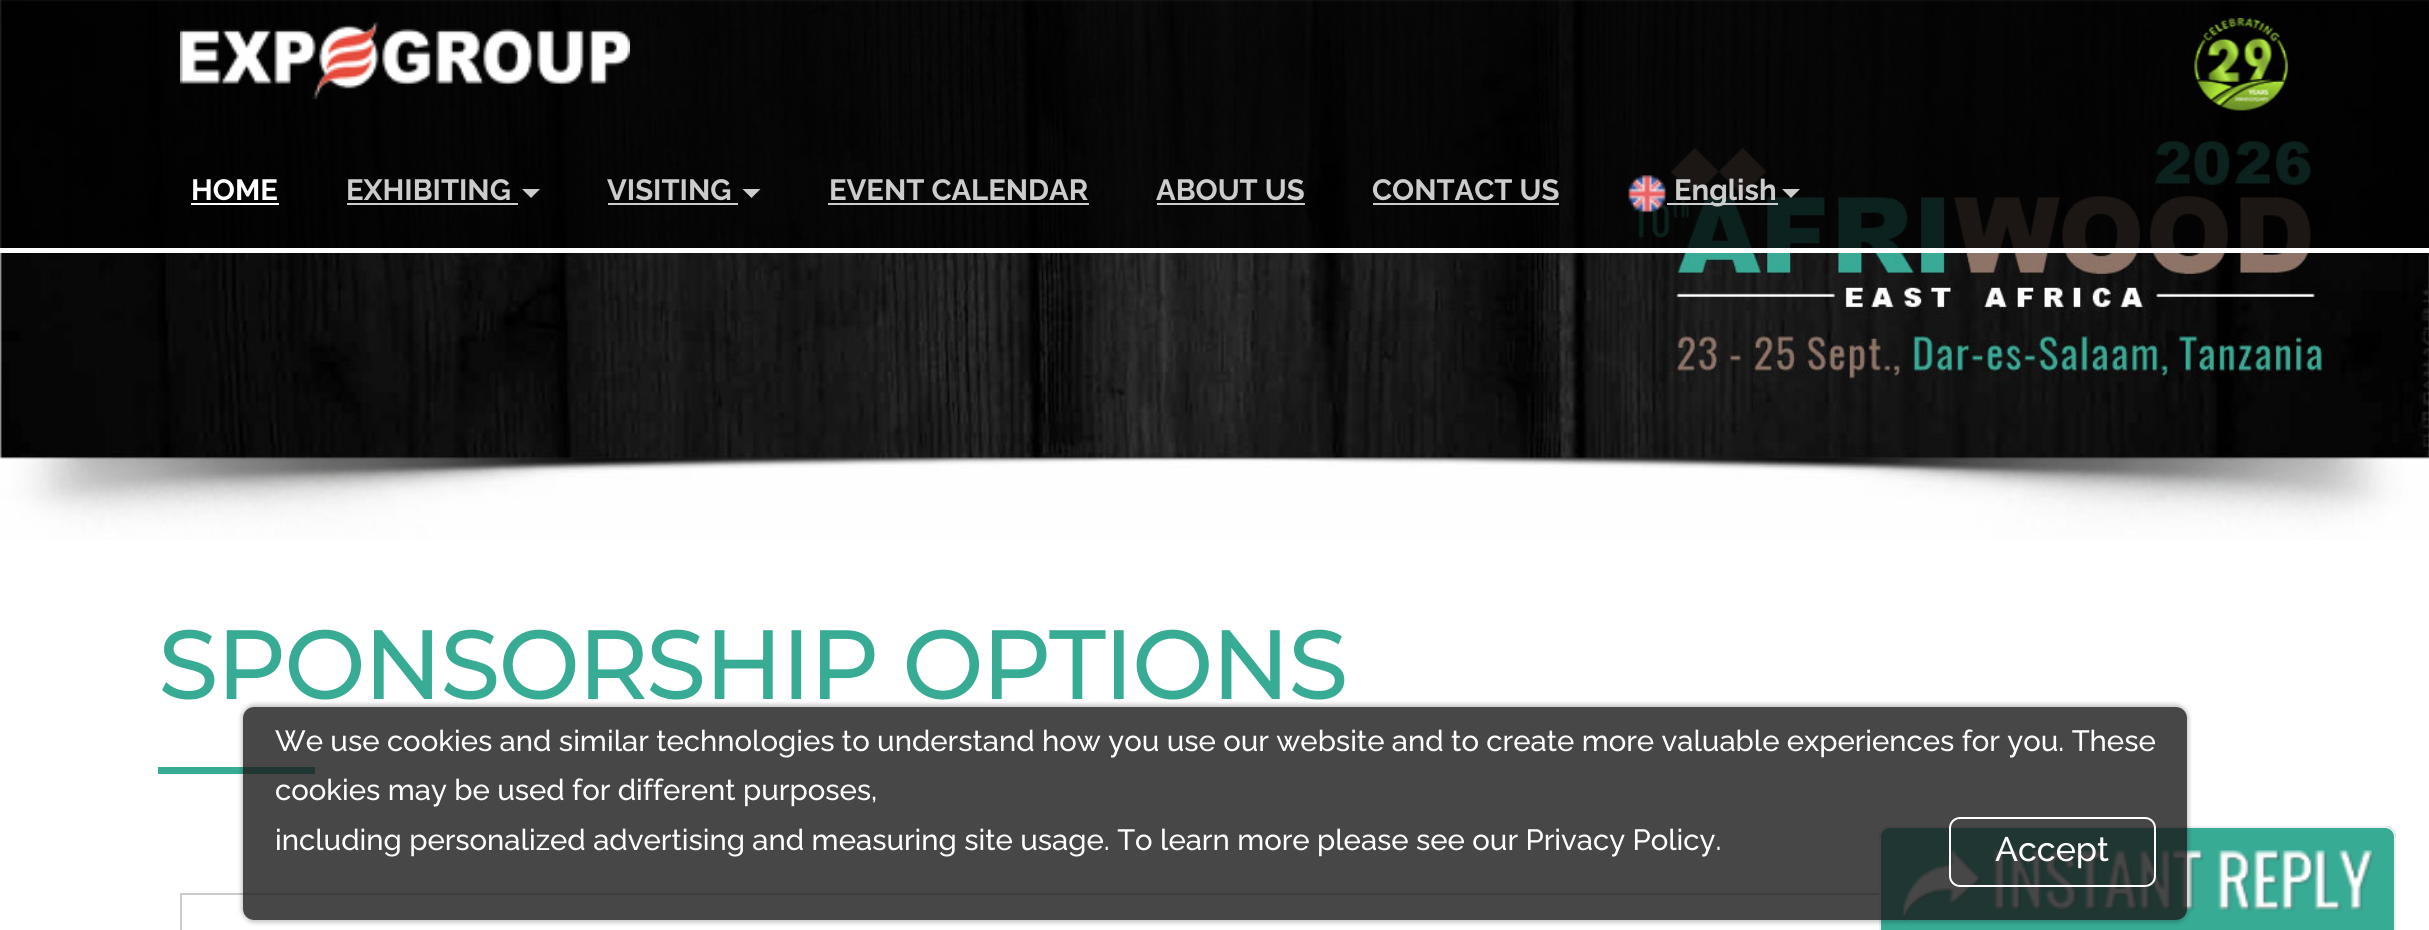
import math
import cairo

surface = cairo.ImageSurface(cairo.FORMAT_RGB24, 2429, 930)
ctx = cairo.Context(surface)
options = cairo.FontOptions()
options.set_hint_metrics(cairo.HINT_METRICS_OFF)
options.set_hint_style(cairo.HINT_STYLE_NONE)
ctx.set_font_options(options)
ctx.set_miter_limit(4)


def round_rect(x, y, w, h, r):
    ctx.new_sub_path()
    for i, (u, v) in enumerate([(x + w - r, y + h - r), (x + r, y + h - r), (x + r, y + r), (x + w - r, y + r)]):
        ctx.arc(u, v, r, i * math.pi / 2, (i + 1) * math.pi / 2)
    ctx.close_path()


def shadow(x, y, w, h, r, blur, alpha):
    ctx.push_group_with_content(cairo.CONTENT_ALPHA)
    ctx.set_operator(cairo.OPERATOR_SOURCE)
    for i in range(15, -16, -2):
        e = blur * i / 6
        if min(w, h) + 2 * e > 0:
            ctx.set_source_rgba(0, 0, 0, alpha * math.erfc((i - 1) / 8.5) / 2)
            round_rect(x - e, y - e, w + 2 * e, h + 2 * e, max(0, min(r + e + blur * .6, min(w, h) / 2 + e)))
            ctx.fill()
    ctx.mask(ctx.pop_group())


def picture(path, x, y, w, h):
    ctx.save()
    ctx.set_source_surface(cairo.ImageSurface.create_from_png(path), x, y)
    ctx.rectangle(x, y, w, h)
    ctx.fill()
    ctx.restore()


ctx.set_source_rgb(1, 1, 1)
ctx.paint()
picture("img1.png", 0, 0, 2429, 540)
ctx.set_source_rgba(0, 0, 0, 0.8)
ctx.rectangle(0, 0, 2429, 248)
ctx.fill()
ctx.set_source_rgb(1, 1, 1)
ctx.rectangle(0, 248, 2429, 5)
ctx.fill()
picture("img2.png", 2194, 18, 95, 93)
picture("img3.png", 180, 22, 450, 77)
ctx.select_font_face("Raleway", cairo.FONT_SLANT_NORMAL, cairo.FONT_WEIGHT_BOLD)
ctx.set_font_size(29.25)
ctx.move_to(191, 200)
ctx.show_text("HOME")
ctx.rectangle(191, 203, 88, 2)
ctx.fill()
ctx.set_source_rgb(0.8, 0.8, 0.8)
ctx.move_to(346, 200)
ctx.show_text("EXHIBITING")
ctx.rectangle(347, 203, 171, 2)
ctx.fill()
ctx.new_path()
ctx.move_to(522, 189)
ctx.line_to(540, 189)
ctx.line_to(531, 198)
ctx.close_path()
ctx.fill()
ctx.move_to(607, 200)
ctx.show_text("VISITING")
ctx.rectangle(608, 203, 130, 2)
ctx.fill()
ctx.new_path()
ctx.move_to(742.5, 189)
ctx.line_to(760.5, 189)
ctx.line_to(751.5, 198)
ctx.close_path()
ctx.fill()
ctx.move_to(829, 200)
ctx.show_text("EVENT CALENDAR")
ctx.rectangle(828, 203, 261, 2)
ctx.fill()
ctx.move_to(1156, 200)
ctx.show_text("ABOUT US")
ctx.rectangle(1157, 203, 148, 2)
ctx.fill()
ctx.move_to(1372, 200)
ctx.show_text("CONTACT US")
ctx.rectangle(1373, 203, 186, 2)
ctx.fill()
picture("img4.png", 1628, 175, 38, 38)
ctx.rectangle(1667, 203, 111, 2)
ctx.fill()
ctx.move_to(1674, 200)
ctx.show_text("English")
ctx.new_path()
ctx.move_to(1782, 189)
ctx.line_to(1800, 189)
ctx.line_to(1791, 198)
ctx.close_path()
ctx.fill()
ctx.select_font_face("Montserrat", cairo.FONT_SLANT_NORMAL, cairo.FONT_WEIGHT_BOLD)
ctx.set_font_size(94.5)
ctx.set_source_rgb(0.216, 0.671, 0.58)
ctx.move_to(158, 699)
ctx.show_text("SPONSORSHIP OPTIONS")
ctx.rectangle(158, 767, 157, 7)
ctx.fill()
ctx.rectangle(181, 894, 2068, 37)
ctx.set_source_rgb(0.8, 0.8, 0.8)
ctx.stroke()
ctx.set_source_rgb(0.216, 0.671, 0.58)
ctx.new_path()
ctx.move_to(1890, 826)
ctx.line_to(2385, 826)
ctx.curve_to(2391, 826, 2396, 831, 2396, 837)
ctx.line_to(2396, 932)
ctx.line_to(1879, 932)
ctx.line_to(1879, 837)
ctx.curve_to(1879, 831, 1884, 826, 1890, 826)
ctx.close_path()
ctx.fill()
ctx.set_source_rgb(0.937, 0.937, 0.937)
ctx.set_fill_rule(cairo.FILL_RULE_EVEN_ODD)
ctx.new_path()
ctx.move_to(1890, 826)
ctx.line_to(2385, 826)
ctx.curve_to(2391, 826, 2396, 831, 2396, 837)
ctx.line_to(2396, 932)
ctx.line_to(1879, 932)
ctx.line_to(1879, 837)
ctx.curve_to(1879, 831, 1884, 826, 1890, 826)
ctx.close_path()
ctx.move_to(1890, 828)
ctx.line_to(2385, 828)
ctx.curve_to(2390, 828, 2394, 832, 2394, 837)
ctx.line_to(2394, 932)
ctx.line_to(1881, 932)
ctx.line_to(1881, 837)
ctx.curve_to(1881, 832, 1885, 828, 1890, 828)
ctx.close_path()
ctx.fill()
picture("img5.png", 1903, 850, 471, 72)
ctx.save()
ctx.new_path()
ctx.move_to(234, 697)
ctx.line_to(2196, 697)
ctx.line_to(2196, 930)
ctx.line_to(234, 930)
ctx.close_path()
ctx.move_to(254, 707)
ctx.line_to(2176, 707)
ctx.curve_to(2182, 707, 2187, 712, 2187, 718)
ctx.line_to(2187, 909)
ctx.curve_to(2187, 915, 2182, 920, 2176, 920)
ctx.line_to(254, 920)
ctx.curve_to(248, 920, 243, 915, 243, 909)
ctx.line_to(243, 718)
ctx.curve_to(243, 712, 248, 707, 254, 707)
ctx.close_path()
ctx.clip()
ctx.set_source_rgb(0, 0, 0)
shadow(241, 704, 1948, 219, 14, 2, 0.2)
ctx.restore()
ctx.set_source_rgba(0.098, 0.098, 0.098, 0.8)
round_rect(243, 707, 1944, 213, 11)
ctx.fill()
ctx.select_font_face("Raleway Medium")
ctx.set_font_size(29.25)
ctx.set_source_rgb(1, 1, 1)
ctx.move_to(275, 751)
ctx.show_text("We use cookies and similar technologies to understand how you use our website and to create more valuable experiences for you. These")
ctx.move_to(275, 800)
ctx.show_text("cookies may be used for different purposes,")
ctx.move_to(275, 850)
ctx.show_text("including personalized advertising and measuring site usage. To learn more please see our Privacy Policy.")
round_rect(1950, 818, 205, 68, 10)
ctx.stroke()
ctx.set_font_size(34)
ctx.move_to(1995, 861)
ctx.show_text("Accept")
surface.write_to_png("page.png")
